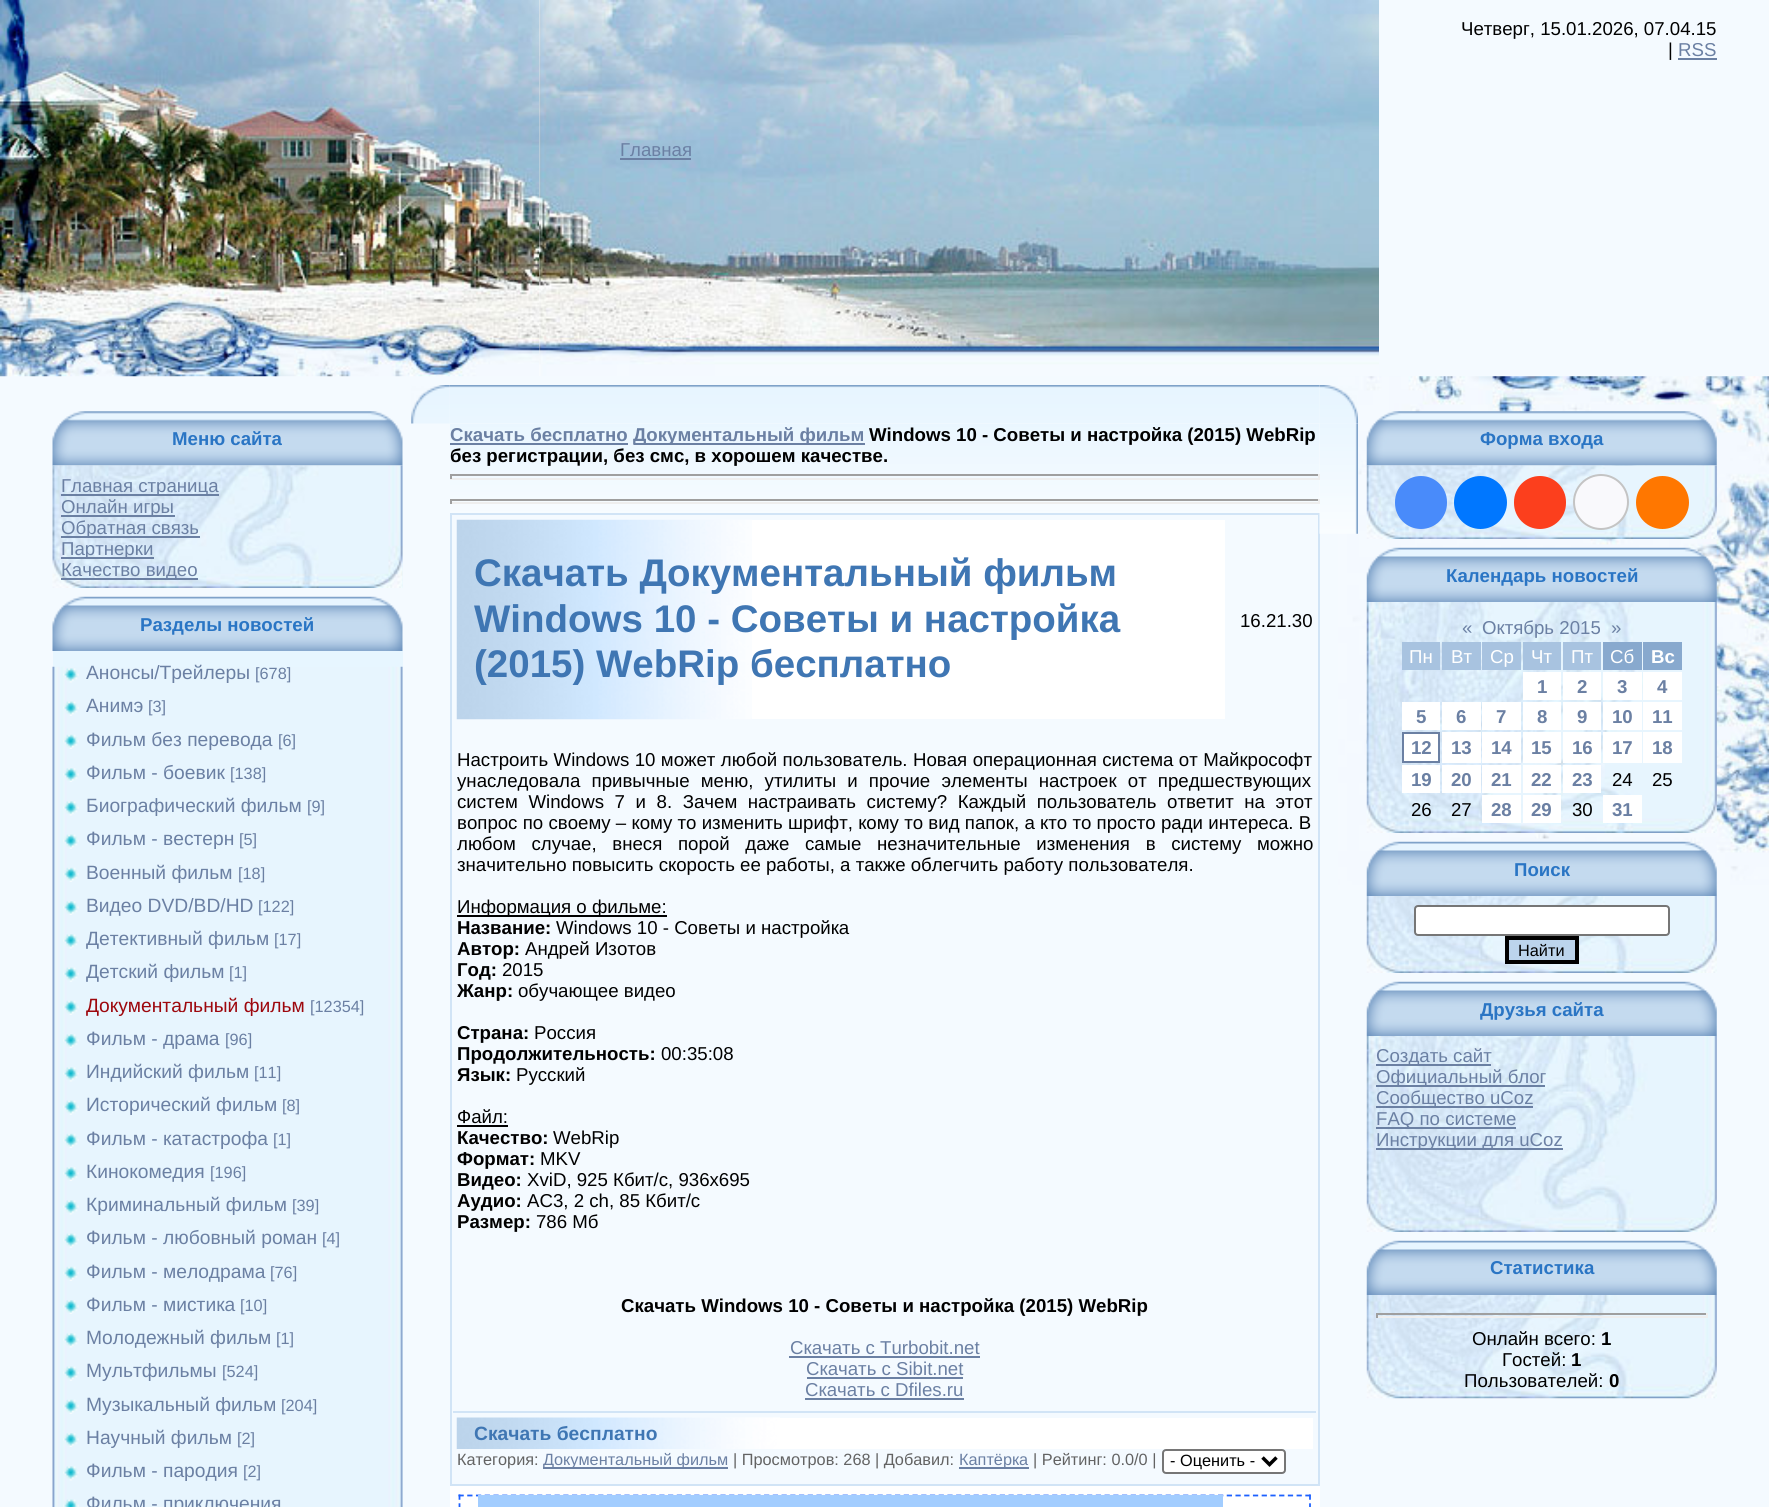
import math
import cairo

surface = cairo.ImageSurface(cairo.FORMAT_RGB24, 1769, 1507)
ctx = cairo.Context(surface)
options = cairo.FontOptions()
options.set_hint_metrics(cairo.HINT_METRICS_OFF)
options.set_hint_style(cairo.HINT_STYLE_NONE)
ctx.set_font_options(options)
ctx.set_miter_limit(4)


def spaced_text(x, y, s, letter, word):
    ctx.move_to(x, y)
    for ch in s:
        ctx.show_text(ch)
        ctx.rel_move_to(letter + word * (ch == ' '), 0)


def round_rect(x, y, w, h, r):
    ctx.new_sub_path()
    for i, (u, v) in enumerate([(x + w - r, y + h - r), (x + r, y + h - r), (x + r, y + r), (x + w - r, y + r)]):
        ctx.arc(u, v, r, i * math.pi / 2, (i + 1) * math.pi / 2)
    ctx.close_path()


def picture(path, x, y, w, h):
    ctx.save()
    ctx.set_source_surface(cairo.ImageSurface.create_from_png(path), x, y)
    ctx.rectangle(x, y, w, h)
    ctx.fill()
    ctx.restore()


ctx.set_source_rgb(0.957, 0.98, 1)
ctx.paint()
picture("img1.png", 539, 0, 840, 376)
picture("img2.png", 0, 0, 539, 377)
ctx.select_font_face("Liberation Sans")
ctx.set_font_size(18.65)
ctx.set_source_rgb(0, 0, 0)
ctx.move_to(1461, 35)
ctx.show_text("Четверг, 15.01.2026, 07.04.15")
ctx.move_to(1668, 56)
ctx.show_text("|")
ctx.set_source_rgb(0.42, 0.502, 0.639)
ctx.move_to(1678, 56)
ctx.show_text("RSS")
ctx.rectangle(1678, 58, 39, 2)
ctx.fill()
ctx.move_to(620, 156)
ctx.show_text("Главная")
ctx.rectangle(620, 158, 71, 2)
ctx.fill()
picture("img3.png", 1338, 376, 431, 515)
picture("img4.png", 52, 411, 351, 55)
ctx.select_font_face("Liberation Sans", cairo.FONT_SLANT_NORMAL, cairo.FONT_WEIGHT_BOLD)
ctx.set_source_rgb(0.165, 0.459, 0.769)
ctx.move_to(172, 445)
ctx.show_text("Меню сайта")
ctx.set_source_rgb(0.906, 0.961, 1)
ctx.rectangle(402, 466, 1, 122)
ctx.fill()
picture("img5.png", 52, 465, 351, 123)
ctx.set_source_rgb(0.42, 0.502, 0.639)
ctx.rectangle(61, 494, 158, 2)
ctx.fill()
ctx.select_font_face("Liberation Sans")
ctx.move_to(61, 492)
ctx.show_text("Главная страница")
ctx.rectangle(61, 515, 114, 2)
ctx.fill()
ctx.move_to(61, 513)
ctx.show_text("Онлайн игры")
ctx.rectangle(61, 536, 139, 2)
ctx.fill()
ctx.move_to(61, 534)
ctx.show_text("Обратная связь")
ctx.rectangle(61, 557, 93, 2)
ctx.fill()
ctx.move_to(61, 555)
ctx.show_text("Партнерки")
ctx.rectangle(61, 578, 137, 2)
ctx.fill()
ctx.move_to(61, 576)
ctx.show_text("Качество видео")
picture("img6.png", 52, 596, 351, 55)
ctx.select_font_face("Liberation Sans", cairo.FONT_SLANT_NORMAL, cairo.FONT_WEIGHT_BOLD)
ctx.set_source_rgb(0.165, 0.459, 0.769)
ctx.move_to(140, 631)
ctx.show_text("Разделы новостей")
ctx.set_source_rgb(0.906, 0.961, 1)
ctx.rectangle(53, 651, 350, 856)
ctx.fill()
picture("img7.png", 52, 666, 351, 841)
picture("img8.png", 63, 668, 16, 15)
ctx.select_font_face("Liberation Sans")
ctx.set_font_size(19.25)
ctx.set_source_rgb(0.42, 0.502, 0.639)
ctx.move_to(86, 679)
ctx.show_text("Анонсы/Трейлеры")
ctx.set_font_size(16.3)
ctx.move_to(255, 679)
ctx.show_text("[678]")
picture("img9.png", 63, 701, 16, 15)
ctx.set_font_size(19.25)
ctx.move_to(86, 712)
ctx.show_text("Анимэ")
ctx.set_font_size(16.3)
ctx.move_to(148, 712)
ctx.show_text("[3]")
picture("img10.png", 63, 734, 16, 15)
ctx.set_font_size(19.25)
ctx.move_to(86, 746)
ctx.show_text("Фильм без перевода")
ctx.set_font_size(16.3)
ctx.move_to(278, 746)
ctx.show_text("[6]")
picture("img11.png", 63, 768, 16, 14)
ctx.set_font_size(19.25)
ctx.move_to(86, 779)
ctx.show_text("Фильм - боевик")
ctx.set_font_size(16.3)
ctx.move_to(230, 779)
ctx.show_text("[138]")
picture("img8.png", 63, 801, 16, 15)
ctx.set_font_size(19.25)
ctx.move_to(86, 812)
ctx.show_text("Биографический фильм")
ctx.set_font_size(16.3)
ctx.move_to(307, 812)
ctx.show_text("[9]")
picture("img9.png", 63, 834, 16, 15)
ctx.set_font_size(19.25)
ctx.move_to(86, 845)
ctx.show_text("Фильм - вестерн")
ctx.set_font_size(16.3)
ctx.move_to(239, 845)
ctx.show_text("[5]")
picture("img10.png", 63, 867, 16, 15)
ctx.set_font_size(19.25)
ctx.move_to(86, 879)
ctx.show_text("Военный фильм")
ctx.set_font_size(16.3)
ctx.move_to(238, 879)
ctx.show_text("[18]")
picture("img11.png", 63, 901, 16, 14)
ctx.set_font_size(19.25)
ctx.move_to(86, 912)
ctx.show_text("Видео DVD/BD/HD")
ctx.set_font_size(16.3)
ctx.move_to(258, 912)
ctx.show_text("[122]")
picture("img8.png", 63, 934, 16, 15)
ctx.set_font_size(19.25)
ctx.move_to(86, 945)
ctx.show_text("Детективный фильм")
ctx.set_font_size(16.3)
ctx.move_to(274, 945)
ctx.show_text("[17]")
picture("img9.png", 63, 967, 16, 15)
ctx.set_font_size(19.25)
ctx.move_to(86, 978)
ctx.show_text("Детский фильм")
ctx.set_font_size(16.3)
ctx.move_to(229, 978)
ctx.show_text("[1]")
picture("img10.png", 63, 1000, 16, 15)
ctx.set_font_size(19.25)
ctx.set_source_rgb(0.616, 0.031, 0.051)
ctx.move_to(86, 1012)
ctx.show_text("Документальный фильм")
ctx.set_font_size(16.3)
ctx.set_source_rgb(0.42, 0.502, 0.639)
ctx.move_to(310, 1012)
ctx.show_text("[12354]")
picture("img11.png", 63, 1034, 16, 14)
ctx.set_font_size(19.25)
ctx.move_to(86, 1045)
ctx.show_text("Фильм - драма")
ctx.set_font_size(16.3)
ctx.move_to(225, 1045)
ctx.show_text("[96]")
picture("img8.png", 63, 1067, 16, 15)
ctx.set_font_size(19.25)
ctx.move_to(86, 1078)
ctx.show_text("Индийский фильм")
ctx.set_font_size(16.3)
ctx.move_to(254, 1078)
ctx.show_text("[11]")
picture("img9.png", 63, 1100, 16, 15)
ctx.set_font_size(19.25)
ctx.move_to(86, 1111)
ctx.show_text("Исторический фильм")
ctx.set_font_size(16.3)
ctx.move_to(282, 1111)
ctx.show_text("[8]")
picture("img10.png", 63, 1133, 16, 15)
ctx.set_font_size(19.25)
ctx.move_to(86, 1145)
ctx.show_text("Фильм - катастрофа")
ctx.set_font_size(16.3)
ctx.move_to(273, 1145)
ctx.show_text("[1]")
picture("img11.png", 63, 1167, 16, 14)
ctx.set_font_size(19.25)
ctx.move_to(86, 1178)
ctx.show_text("Кинокомедия")
ctx.set_font_size(16.3)
ctx.move_to(210, 1178)
ctx.show_text("[196]")
picture("img8.png", 63, 1200, 16, 15)
ctx.set_font_size(19.25)
ctx.move_to(86, 1211)
ctx.show_text("Криминальный фильм")
ctx.set_font_size(16.3)
ctx.move_to(292, 1211)
ctx.show_text("[39]")
picture("img9.png", 63, 1233, 16, 15)
ctx.set_font_size(19.25)
ctx.move_to(86, 1244)
ctx.show_text("Фильм - любовный роман")
ctx.set_font_size(16.3)
ctx.move_to(322, 1244)
ctx.show_text("[4]")
picture("img10.png", 63, 1266, 16, 15)
ctx.set_font_size(19.25)
ctx.move_to(86, 1278)
ctx.show_text("Фильм - мелодрама")
ctx.set_font_size(16.3)
ctx.move_to(270, 1278)
ctx.show_text("[76]")
picture("img11.png", 63, 1300, 16, 14)
ctx.set_font_size(19.25)
ctx.move_to(86, 1311)
ctx.show_text("Фильм - мистика")
ctx.set_font_size(16.3)
ctx.move_to(240, 1311)
ctx.show_text("[10]")
picture("img8.png", 63, 1333, 16, 15)
ctx.set_font_size(19.25)
ctx.move_to(86, 1344)
ctx.show_text("Молодежный фильм")
ctx.set_font_size(16.3)
ctx.move_to(276, 1344)
ctx.show_text("[1]")
picture("img9.png", 63, 1366, 16, 15)
ctx.set_font_size(19.25)
ctx.move_to(86, 1377)
ctx.show_text("Мультфильмы")
ctx.set_font_size(16.3)
ctx.move_to(222, 1377)
ctx.show_text("[524]")
picture("img10.png", 63, 1399, 16, 15)
ctx.set_font_size(19.25)
ctx.move_to(86, 1411)
ctx.show_text("Музыкальный фильм")
ctx.set_font_size(16.3)
ctx.move_to(281, 1411)
ctx.show_text("[204]")
picture("img11.png", 63, 1433, 16, 14)
ctx.set_font_size(19.25)
ctx.move_to(86, 1444)
ctx.show_text("Научный фильм")
ctx.set_font_size(16.3)
ctx.move_to(237, 1444)
ctx.show_text("[2]")
picture("img8.png", 63, 1466, 16, 15)
ctx.set_font_size(19.25)
ctx.move_to(86, 1477)
ctx.show_text("Фильм - пародия")
ctx.set_font_size(16.3)
ctx.move_to(243, 1477)
ctx.show_text("[2]")
picture("img12.png", 63, 1499, 16, 8)
ctx.set_font_size(19.25)
ctx.move_to(86, 1510)
ctx.show_text("Фильм - приключения")
picture("img14.png", 449, 385, 871, 39)
picture("img13.png", 411, 385, 39, 39)
picture("img15.png", 1319, 385, 39, 39)
ctx.set_source_rgb(1, 1, 1)
ctx.rectangle(450, 424, 870, 1083)
ctx.fill()
picture("img16.png", 450, 424, 870, 89)
ctx.select_font_face("Liberation Sans", cairo.FONT_SLANT_NORMAL, cairo.FONT_WEIGHT_BOLD)
ctx.set_font_size(18.65)
ctx.set_source_rgb(0.42, 0.502, 0.639)
ctx.move_to(450, 441)
ctx.show_text("Скачать бесплатно")
ctx.rectangle(450, 443, 178, 2)
ctx.fill()
ctx.rectangle(634, 443, 231, 2)
ctx.fill()
ctx.move_to(633, 441)
ctx.show_text("Документальный фильм")
ctx.set_source_rgb(0, 0, 0)
ctx.move_to(869, 441)
ctx.show_text("Windows 10 - Советы и настройка (2015) WebRip")
ctx.move_to(450, 462)
ctx.show_text("без регистрации, без смс, в хорошем качестве.")
ctx.set_source_rgb(0.957, 0.98, 1)
ctx.rectangle(451, 514, 868, 971)
ctx.fill_preserve()
ctx.set_source_rgb(0.82, 0.894, 0.961)
ctx.stroke()
picture("img19.png", 1319, 423, 39, 111)
ctx.set_source_rgb(0.624, 0.624, 0.624)
ctx.rectangle(450, 474, 870, 2)
ctx.fill()
ctx.set_source_rgb(0.933, 0.933, 0.933)
ctx.rectangle(1318, 474, 2, 5)
ctx.fill()
ctx.rectangle(450, 478, 870, 2)
ctx.fill()
ctx.set_source_rgb(0.624, 0.624, 0.624)
ctx.rectangle(450, 474, 2, 5)
ctx.fill()
ctx.rectangle(450, 499, 870, 2)
ctx.fill()
ctx.set_source_rgb(0.933, 0.933, 0.933)
ctx.rectangle(1318, 499, 2, 5)
ctx.fill()
ctx.rectangle(450, 502, 870, 2)
ctx.fill()
ctx.set_source_rgb(0.624, 0.624, 0.624)
ctx.rectangle(450, 499, 2, 5)
ctx.fill()
ctx.set_source_rgb(1, 1, 1)
ctx.rectangle(752, 520, 473, 199)
ctx.fill()
picture("img17.png", 456, 519, 296, 201)
ctx.set_font_size(38.5)
ctx.set_source_rgb(0.247, 0.463, 0.702)
ctx.move_to(474, 586)
ctx.show_text("Скачать Документальный фильм")
ctx.move_to(474, 632)
ctx.show_text("Windows 10 - Советы и настройка")
ctx.move_to(474, 677)
ctx.show_text("(2015) WebRip бесплатно")
ctx.select_font_face("Liberation Sans")
ctx.set_font_size(18.65)
ctx.set_source_rgb(0, 0, 0)
ctx.move_to(1240, 627)
ctx.show_text("16.21.30")
spaced_text(457, 766, "Настроить Windows 10 может любой пользователь. Новая операционная система от Майкрософт", 0, 0.25)
spaced_text(457, 787, "унаследовала привычные меню, утилиты и прочие элементы настроек от предшествующих", 0, 6)
spaced_text(457, 808, "систем Windows 7 и 8. Зачем настраивать систему? Каждый пользователь ответит на этот", 0, 5.4)
spaced_text(457, 829, "вопрос по своему – кому то изменить шрифт, кому то вид папок, а кто то просто ради интереса. В", 0, 0.1)
spaced_text(457, 850, "любом случае, внеся порой даже самые незначительные изменения в систему можно", 0, 10.5)
ctx.move_to(457, 871)
ctx.show_text("значительно повысить скорость ее работы, а также облегчить работу пользователя.")
ctx.rectangle(457, 915, 210, 2)
ctx.fill()
ctx.move_to(457, 913)
ctx.show_text("Информация о фильме:")
ctx.select_font_face("Liberation Sans", cairo.FONT_SLANT_NORMAL, cairo.FONT_WEIGHT_BOLD)
ctx.move_to(457, 934)
ctx.show_text("Название:")
ctx.select_font_face("Liberation Sans")
ctx.move_to(556, 934)
ctx.show_text("Windows 10 - Советы и настройка")
ctx.select_font_face("Liberation Sans", cairo.FONT_SLANT_NORMAL, cairo.FONT_WEIGHT_BOLD)
ctx.move_to(457, 955)
ctx.show_text("Автор:")
ctx.select_font_face("Liberation Sans")
ctx.move_to(525, 955)
ctx.show_text("Андрей Изотов")
ctx.select_font_face("Liberation Sans", cairo.FONT_SLANT_NORMAL, cairo.FONT_WEIGHT_BOLD)
ctx.move_to(457, 976)
ctx.show_text("Год:")
ctx.select_font_face("Liberation Sans")
ctx.move_to(502, 976)
ctx.show_text("2015")
ctx.select_font_face("Liberation Sans", cairo.FONT_SLANT_NORMAL, cairo.FONT_WEIGHT_BOLD)
ctx.move_to(457, 997)
ctx.show_text("Жанр:")
ctx.select_font_face("Liberation Sans")
ctx.move_to(518, 997)
ctx.show_text("обучающее видео")
ctx.select_font_face("Liberation Sans", cairo.FONT_SLANT_NORMAL, cairo.FONT_WEIGHT_BOLD)
ctx.move_to(457, 1039)
ctx.show_text("Страна:")
ctx.select_font_face("Liberation Sans")
ctx.move_to(534, 1039)
ctx.show_text("Россия")
ctx.select_font_face("Liberation Sans", cairo.FONT_SLANT_NORMAL, cairo.FONT_WEIGHT_BOLD)
ctx.move_to(457, 1060)
ctx.show_text("Продолжительность:")
ctx.select_font_face("Liberation Sans")
ctx.move_to(661, 1060)
ctx.show_text("00:35:08")
ctx.select_font_face("Liberation Sans", cairo.FONT_SLANT_NORMAL, cairo.FONT_WEIGHT_BOLD)
ctx.move_to(457, 1081)
ctx.show_text("Язык:")
ctx.select_font_face("Liberation Sans")
ctx.move_to(516, 1081)
ctx.show_text("Русский")
ctx.move_to(457, 1123)
ctx.show_text("Файл:")
ctx.rectangle(457, 1125, 51, 2)
ctx.fill()
ctx.select_font_face("Liberation Sans", cairo.FONT_SLANT_NORMAL, cairo.FONT_WEIGHT_BOLD)
ctx.move_to(457, 1144)
ctx.show_text("Качество:")
ctx.select_font_face("Liberation Sans")
ctx.move_to(553, 1144)
ctx.show_text("WebRip")
ctx.select_font_face("Liberation Sans", cairo.FONT_SLANT_NORMAL, cairo.FONT_WEIGHT_BOLD)
ctx.move_to(457, 1165)
ctx.show_text("Формат:")
ctx.select_font_face("Liberation Sans")
ctx.move_to(540, 1165)
ctx.show_text("MKV")
ctx.select_font_face("Liberation Sans", cairo.FONT_SLANT_NORMAL, cairo.FONT_WEIGHT_BOLD)
ctx.move_to(457, 1186)
ctx.show_text("Видео:")
ctx.select_font_face("Liberation Sans")
ctx.move_to(527, 1186)
ctx.show_text("XviD, 925 Кбит/с, 936x695")
ctx.select_font_face("Liberation Sans", cairo.FONT_SLANT_NORMAL, cairo.FONT_WEIGHT_BOLD)
ctx.move_to(457, 1207)
ctx.show_text("Аудио:")
ctx.select_font_face("Liberation Sans")
ctx.move_to(527, 1207)
ctx.show_text("AC3, 2 ch, 85 Кбит/с")
ctx.select_font_face("Liberation Sans", cairo.FONT_SLANT_NORMAL, cairo.FONT_WEIGHT_BOLD)
ctx.move_to(457, 1228)
ctx.show_text("Размер:")
ctx.select_font_face("Liberation Sans")
ctx.move_to(536, 1228)
ctx.show_text("786 Мб")
ctx.select_font_face("Liberation Sans", cairo.FONT_SLANT_NORMAL, cairo.FONT_WEIGHT_BOLD)
ctx.move_to(621, 1312)
ctx.show_text("Скачать Windows 10 - Советы и настройка (2015) WebRip")
ctx.select_font_face("Liberation Sans")
ctx.set_source_rgb(0.42, 0.502, 0.639)
ctx.move_to(790, 1354)
ctx.show_text("Скачать с Turbobit.net")
ctx.rectangle(789, 1356, 191, 2)
ctx.fill()
ctx.move_to(806, 1375)
ctx.show_text("Скачать с Sibit.net")
ctx.rectangle(807, 1377, 156, 2)
ctx.fill()
ctx.move_to(805, 1396)
ctx.show_text("Скачать с Dfiles.ru")
ctx.rectangle(805, 1398, 159, 2)
ctx.fill()
ctx.set_source_rgb(0.82, 0.894, 0.961)
ctx.rectangle(453, 1411, 863, 2)
ctx.fill()
ctx.set_source_rgb(1, 1, 1)
ctx.rectangle(780, 1418, 533, 31)
ctx.fill()
picture("img18.png", 456, 1417, 324, 32)
ctx.select_font_face("Liberation Sans", cairo.FONT_SLANT_NORMAL, cairo.FONT_WEIGHT_BOLD)
ctx.set_font_size(19.25)
ctx.set_source_rgb(0.247, 0.463, 0.702)
ctx.move_to(474, 1440)
ctx.show_text("Скачать бесплатно")
ctx.select_font_face("Liberation Sans")
ctx.set_font_size(16.3)
ctx.set_source_rgb(0.388, 0.388, 0.388)
ctx.move_to(457, 1465)
ctx.show_text("Категория:")
ctx.set_source_rgb(0.42, 0.502, 0.639)
ctx.rectangle(543, 1467, 185, 2)
ctx.fill()
ctx.move_to(543, 1465)
ctx.show_text("Документальный фильм")
ctx.set_source_rgb(0.388, 0.388, 0.388)
ctx.move_to(733, 1465)
ctx.show_text("| Просмотров: 268 | Добавил:")
ctx.set_source_rgb(0.42, 0.502, 0.639)
ctx.rectangle(959, 1467, 70, 2)
ctx.fill()
ctx.move_to(959, 1465)
ctx.show_text("Каптёрка")
ctx.set_source_rgb(0.388, 0.388, 0.388)
ctx.move_to(1033, 1465)
ctx.show_text("| Рейтинг: 0.0/0 |")
ctx.set_source_rgb(1, 1, 1)
round_rect(1163, 1450, 122, 23, 3)
ctx.fill_preserve()
ctx.set_source_rgb(0.463, 0.463, 0.463)
ctx.stroke()
ctx.new_path()
ctx.move_to(1262.5, 1457.5)
ctx.line_to(1269.5, 1464.5)
ctx.line_to(1276.5, 1457.5)
ctx.set_source_rgb(0, 0, 0)
ctx.set_line_width(3.5)
ctx.stroke()
ctx.move_to(1170, 1466)
ctx.show_text("- Оценить -")
ctx.new_path()
ctx.move_to(458.5, 1495.5)
ctx.line_to(1311, 1495.5)
ctx.set_source_rgb(0.114, 0.38, 1)
ctx.set_line_width(1.8)
ctx.set_dash([5.25, 3.48])
ctx.stroke()
ctx.new_path()
ctx.move_to(1310, 1494.5)
ctx.line_to(1310, 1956.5)
ctx.set_dash([5.25, 3.54])
ctx.stroke()
ctx.new_path()
ctx.move_to(459.5, 1494.5)
ctx.line_to(459.5, 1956.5)
ctx.stroke()
ctx.set_source_rgb(0.635, 0.804, 1)
ctx.rectangle(478, 1495, 745, 12)
ctx.fill()
picture("img20.png", 1366, 411, 351, 55)
ctx.select_font_face("Liberation Sans", cairo.FONT_SLANT_NORMAL, cairo.FONT_WEIGHT_BOLD)
ctx.set_font_size(18.65)
ctx.set_source_rgb(0.165, 0.459, 0.769)
ctx.move_to(1480, 445)
ctx.show_text("Форма входа")
picture("img21.png", 1366, 465, 351, 74)
ctx.set_source_rgb(0.286, 0.545, 0.98)
round_rect(1395, 476, 52, 53, 26)
ctx.fill()
ctx.set_source_rgb(0, 0.467, 1)
ctx.arc(1480.5, 502.5, 26.5, 0, 2 * math.pi)
ctx.fill()
ctx.set_source_rgb(0.988, 0.247, 0.114)
round_rect(1514, 476, 52, 53, 26)
ctx.fill()
ctx.set_source_rgb(0.973, 0.973, 0.988)
ctx.arc(1601, 502, 27, 0, 2 * math.pi)
ctx.fill_preserve()
ctx.set_source_rgb(0.769, 0.769, 0.769)
ctx.set_line_width(2)
ctx.set_dash([])
ctx.stroke()
ctx.set_source_rgb(1, 0.467, 0)
ctx.arc(1662.5, 502.5, 26.5, 0, 2 * math.pi)
ctx.fill()
picture("img22.png", 1366, 547, 351, 55)
ctx.set_source_rgb(0.165, 0.459, 0.769)
ctx.move_to(1446, 582)
ctx.show_text("Календарь новостей")
picture("img23.png", 1366, 602, 351, 231)
ctx.select_font_face("Liberation Sans")
ctx.set_source_rgb(0.42, 0.502, 0.639)
ctx.move_to(1462, 634)
ctx.show_text("«")
ctx.move_to(1482, 634)
ctx.show_text("Октябрь 2015")
ctx.move_to(1611, 634)
ctx.show_text("»")
ctx.set_source_rgb(0.659, 0.765, 0.878)
ctx.rectangle(1402, 642, 38, 28)
ctx.fill()
ctx.set_source_rgb(1, 1, 1)
ctx.move_to(1409, 663)
ctx.show_text("Пн")
ctx.set_source_rgb(0.659, 0.765, 0.878)
ctx.rectangle(1442, 642, 39, 28)
ctx.fill()
ctx.set_source_rgb(1, 1, 1)
ctx.move_to(1451, 663)
ctx.show_text("Вт")
ctx.set_source_rgb(0.659, 0.765, 0.878)
ctx.rectangle(1482, 642, 39, 28)
ctx.fill()
ctx.set_source_rgb(1, 1, 1)
ctx.move_to(1490, 663)
ctx.show_text("Ср")
ctx.set_source_rgb(0.659, 0.765, 0.878)
ctx.rectangle(1523, 642, 38, 28)
ctx.fill()
ctx.set_source_rgb(1, 1, 1)
ctx.move_to(1531, 663)
ctx.show_text("Чт")
ctx.set_source_rgb(0.659, 0.765, 0.878)
ctx.rectangle(1563, 642, 38, 28)
ctx.fill()
ctx.set_source_rgb(1, 1, 1)
ctx.move_to(1571, 663)
ctx.show_text("Пт")
ctx.set_source_rgb(0.533, 0.663, 0.808)
ctx.rectangle(1603, 642, 39, 28)
ctx.fill()
ctx.set_source_rgb(1, 1, 1)
ctx.move_to(1610, 663)
ctx.show_text("Сб")
ctx.set_source_rgb(0.533, 0.663, 0.808)
ctx.rectangle(1643, 642, 39, 28)
ctx.fill()
ctx.select_font_face("Liberation Sans", cairo.FONT_SLANT_NORMAL, cairo.FONT_WEIGHT_BOLD)
ctx.set_source_rgb(1, 1, 1)
ctx.move_to(1651, 663)
ctx.show_text("Вс")
ctx.rectangle(1523, 672, 38, 28)
ctx.fill()
ctx.set_source_rgb(0.42, 0.502, 0.639)
ctx.move_to(1537, 693)
ctx.show_text("1")
ctx.set_source_rgb(1, 1, 1)
ctx.rectangle(1563, 672, 38, 28)
ctx.fill()
ctx.set_source_rgb(0.42, 0.502, 0.639)
ctx.move_to(1577, 693)
ctx.show_text("2")
ctx.set_source_rgb(1, 1, 1)
ctx.rectangle(1603, 672, 39, 28)
ctx.fill()
ctx.set_source_rgb(0.42, 0.502, 0.639)
ctx.move_to(1617, 693)
ctx.show_text("3")
ctx.set_source_rgb(1, 1, 1)
ctx.rectangle(1643, 672, 39, 28)
ctx.fill()
ctx.set_source_rgb(0.42, 0.502, 0.639)
ctx.move_to(1657, 693)
ctx.show_text("4")
ctx.set_source_rgb(1, 1, 1)
ctx.rectangle(1402, 702, 38, 28)
ctx.fill()
ctx.set_source_rgb(0.42, 0.502, 0.639)
ctx.move_to(1416, 723)
ctx.show_text("5")
ctx.set_source_rgb(1, 1, 1)
ctx.rectangle(1442, 702, 39, 28)
ctx.fill()
ctx.set_source_rgb(0.42, 0.502, 0.639)
ctx.move_to(1456, 723)
ctx.show_text("6")
ctx.set_source_rgb(1, 1, 1)
ctx.rectangle(1482, 702, 39, 28)
ctx.fill()
ctx.set_source_rgb(0.42, 0.502, 0.639)
ctx.move_to(1496, 723)
ctx.show_text("7")
ctx.set_source_rgb(1, 1, 1)
ctx.rectangle(1523, 702, 38, 28)
ctx.fill()
ctx.set_source_rgb(0.42, 0.502, 0.639)
ctx.move_to(1537, 723)
ctx.show_text("8")
ctx.set_source_rgb(1, 1, 1)
ctx.rectangle(1563, 702, 38, 28)
ctx.fill()
ctx.set_source_rgb(0.42, 0.502, 0.639)
ctx.move_to(1577, 723)
ctx.show_text("9")
ctx.set_source_rgb(1, 1, 1)
ctx.rectangle(1603, 702, 39, 28)
ctx.fill()
ctx.set_source_rgb(0.42, 0.502, 0.639)
ctx.move_to(1612, 723)
ctx.show_text("10")
ctx.set_source_rgb(1, 1, 1)
ctx.rectangle(1643, 702, 39, 28)
ctx.fill()
ctx.set_source_rgb(0.42, 0.502, 0.639)
ctx.move_to(1652, 723)
ctx.show_text("11")
ctx.set_source_rgb(1, 1, 1)
ctx.rectangle(1403, 733, 36, 29)
ctx.fill_preserve()
ctx.set_source_rgb(0.42, 0.502, 0.639)
ctx.stroke()
ctx.move_to(1411, 754)
ctx.show_text("12")
ctx.set_source_rgb(1, 1, 1)
ctx.rectangle(1442, 732, 39, 31)
ctx.fill()
ctx.set_source_rgb(0.42, 0.502, 0.639)
ctx.move_to(1451, 754)
ctx.show_text("13")
ctx.set_source_rgb(1, 1, 1)
ctx.rectangle(1482, 732, 39, 31)
ctx.fill()
ctx.set_source_rgb(0.42, 0.502, 0.639)
ctx.move_to(1491, 754)
ctx.show_text("14")
ctx.set_source_rgb(1, 1, 1)
ctx.rectangle(1523, 732, 38, 31)
ctx.fill()
ctx.set_source_rgb(0.42, 0.502, 0.639)
ctx.move_to(1531, 754)
ctx.show_text("15")
ctx.set_source_rgb(1, 1, 1)
ctx.rectangle(1563, 732, 38, 31)
ctx.fill()
ctx.set_source_rgb(0.42, 0.502, 0.639)
ctx.move_to(1572, 754)
ctx.show_text("16")
ctx.set_source_rgb(1, 1, 1)
ctx.rectangle(1603, 732, 39, 31)
ctx.fill()
ctx.set_source_rgb(0.42, 0.502, 0.639)
ctx.move_to(1612, 754)
ctx.show_text("17")
ctx.set_source_rgb(1, 1, 1)
ctx.rectangle(1643, 732, 39, 31)
ctx.fill()
ctx.set_source_rgb(0.42, 0.502, 0.639)
ctx.move_to(1652, 754)
ctx.show_text("18")
ctx.set_source_rgb(1, 1, 1)
ctx.rectangle(1402, 765, 38, 28)
ctx.fill()
ctx.set_source_rgb(0.42, 0.502, 0.639)
ctx.move_to(1411, 786)
ctx.show_text("19")
ctx.set_source_rgb(1, 1, 1)
ctx.rectangle(1442, 765, 39, 28)
ctx.fill()
ctx.set_source_rgb(0.42, 0.502, 0.639)
ctx.move_to(1451, 786)
ctx.show_text("20")
ctx.set_source_rgb(1, 1, 1)
ctx.rectangle(1482, 765, 39, 28)
ctx.fill()
ctx.set_source_rgb(0.42, 0.502, 0.639)
ctx.move_to(1491, 786)
ctx.show_text("21")
ctx.set_source_rgb(1, 1, 1)
ctx.rectangle(1523, 765, 38, 28)
ctx.fill()
ctx.set_source_rgb(0.42, 0.502, 0.639)
ctx.move_to(1531, 786)
ctx.show_text("22")
ctx.set_source_rgb(1, 1, 1)
ctx.rectangle(1563, 765, 38, 28)
ctx.fill()
ctx.set_source_rgb(0.42, 0.502, 0.639)
ctx.move_to(1572, 786)
ctx.show_text("23")
ctx.select_font_face("Liberation Sans")
ctx.set_source_rgb(0, 0, 0)
ctx.move_to(1612, 786)
ctx.show_text("24")
ctx.move_to(1652, 786)
ctx.show_text("25")
ctx.move_to(1411, 816)
ctx.show_text("26")
ctx.move_to(1451, 816)
ctx.show_text("27")
ctx.set_source_rgb(1, 1, 1)
ctx.rectangle(1482, 795, 39, 28)
ctx.fill()
ctx.select_font_face("Liberation Sans", cairo.FONT_SLANT_NORMAL, cairo.FONT_WEIGHT_BOLD)
ctx.set_source_rgb(0.42, 0.502, 0.639)
ctx.move_to(1491, 816)
ctx.show_text("28")
ctx.set_source_rgb(1, 1, 1)
ctx.rectangle(1523, 795, 38, 28)
ctx.fill()
ctx.set_source_rgb(0.42, 0.502, 0.639)
ctx.move_to(1531, 816)
ctx.show_text("29")
ctx.select_font_face("Liberation Sans")
ctx.set_source_rgb(0, 0, 0)
ctx.move_to(1572, 816)
ctx.show_text("30")
ctx.set_source_rgb(1, 1, 1)
ctx.rectangle(1603, 795, 39, 28)
ctx.fill()
ctx.select_font_face("Liberation Sans", cairo.FONT_SLANT_NORMAL, cairo.FONT_WEIGHT_BOLD)
ctx.set_source_rgb(0.42, 0.502, 0.639)
ctx.move_to(1612, 816)
ctx.show_text("31")
picture("img24.png", 1366, 841, 351, 55)
ctx.set_source_rgb(0.165, 0.459, 0.769)
ctx.move_to(1514, 876)
ctx.show_text("Поиск")
picture("img25.png", 1366, 896, 351, 77)
ctx.set_source_rgb(1, 1, 1)
round_rect(1415, 906, 254, 29, 3)
ctx.fill_preserve()
ctx.set_source_rgb(0.463, 0.463, 0.463)
ctx.stroke()
ctx.set_source_rgb(0.737, 0.831, 0.922)
ctx.rectangle(1507, 938, 70, 24)
ctx.fill_preserve()
ctx.set_source_rgb(0, 0, 0)
ctx.set_line_width(4)
ctx.stroke()
ctx.select_font_face("Liberation Sans")
ctx.set_font_size(16.3)
ctx.move_to(1518, 956)
ctx.show_text("Найти")
picture("img26.png", 1366, 981, 351, 55)
ctx.select_font_face("Liberation Sans", cairo.FONT_SLANT_NORMAL, cairo.FONT_WEIGHT_BOLD)
ctx.set_font_size(18.65)
ctx.set_source_rgb(0.165, 0.459, 0.769)
ctx.move_to(1480, 1016)
ctx.show_text("Друзья сайта")
picture("img27.png", 1366, 1036, 351, 196)
ctx.set_source_rgb(0.42, 0.502, 0.639)
ctx.rectangle(1376, 1064, 115, 2)
ctx.fill()
ctx.select_font_face("Liberation Sans")
ctx.move_to(1376, 1062)
ctx.show_text("Создать сайт")
ctx.rectangle(1376, 1085, 169, 2)
ctx.fill()
ctx.move_to(1376, 1083)
ctx.show_text("Официальный блог")
ctx.rectangle(1376, 1106, 157, 2)
ctx.fill()
ctx.move_to(1376, 1104)
ctx.show_text("Сообщество uCoz")
ctx.rectangle(1376, 1127, 140, 2)
ctx.fill()
ctx.move_to(1376, 1125)
ctx.show_text("FAQ по системе")
ctx.rectangle(1376, 1148, 187, 2)
ctx.fill()
ctx.move_to(1376, 1146)
ctx.show_text("Инструкции для uCoz")
picture("img26.png", 1366, 1240, 351, 55)
ctx.select_font_face("Liberation Sans", cairo.FONT_SLANT_NORMAL, cairo.FONT_WEIGHT_BOLD)
ctx.set_source_rgb(0.165, 0.459, 0.769)
ctx.move_to(1490, 1274)
ctx.show_text("Статистика")
picture("img28.png", 1366, 1295, 351, 104)
ctx.set_source_rgb(0.624, 0.624, 0.624)
ctx.rectangle(1376, 1313, 332, 2)
ctx.fill()
ctx.set_source_rgb(0.933, 0.933, 0.933)
ctx.rectangle(1706, 1313, 2, 5)
ctx.fill()
ctx.rectangle(1376, 1316, 332, 2)
ctx.fill()
ctx.set_source_rgb(0.624, 0.624, 0.624)
ctx.rectangle(1376, 1313, 2, 5)
ctx.fill()
ctx.select_font_face("Liberation Sans")
ctx.set_source_rgb(0, 0, 0)
ctx.move_to(1472, 1345)
ctx.show_text("Онлайн всего:")
ctx.select_font_face("Liberation Sans", cairo.FONT_SLANT_NORMAL, cairo.FONT_WEIGHT_BOLD)
ctx.move_to(1601, 1345)
ctx.show_text("1")
ctx.select_font_face("Liberation Sans")
ctx.move_to(1502, 1366)
ctx.show_text("Гостей:")
ctx.select_font_face("Liberation Sans", cairo.FONT_SLANT_NORMAL, cairo.FONT_WEIGHT_BOLD)
ctx.move_to(1571, 1366)
ctx.show_text("1")
ctx.select_font_face("Liberation Sans")
ctx.move_to(1464, 1387)
ctx.show_text("Пользователей:")
ctx.select_font_face("Liberation Sans", cairo.FONT_SLANT_NORMAL, cairo.FONT_WEIGHT_BOLD)
ctx.move_to(1609, 1387)
ctx.show_text("0")
surface.write_to_png("page.png")
